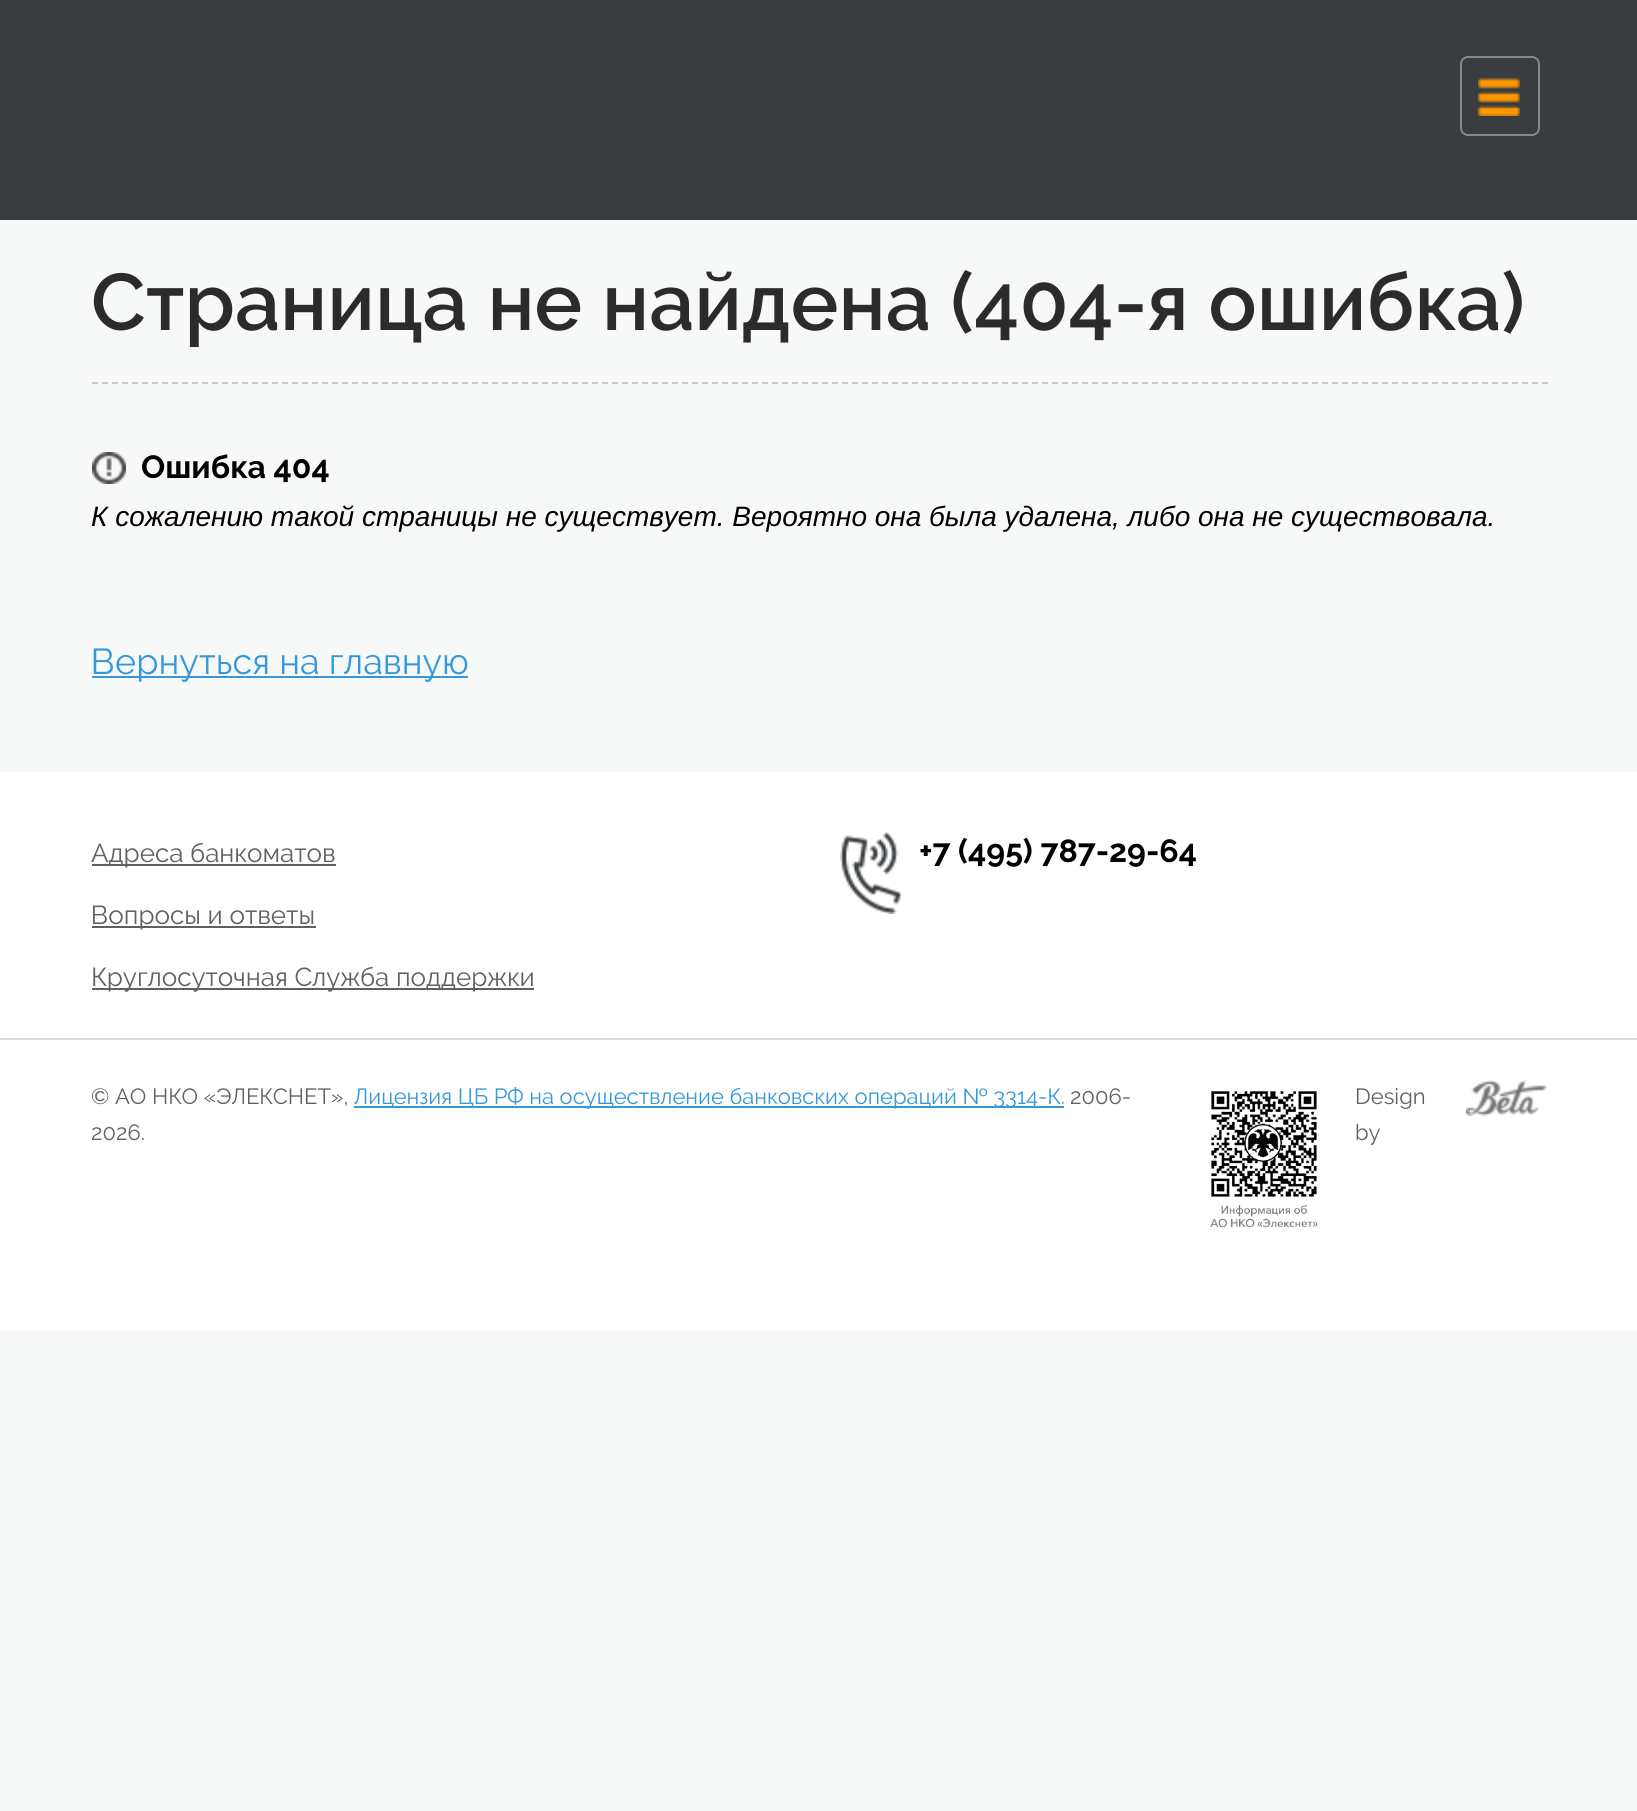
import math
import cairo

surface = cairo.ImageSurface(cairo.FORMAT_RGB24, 1637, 1811)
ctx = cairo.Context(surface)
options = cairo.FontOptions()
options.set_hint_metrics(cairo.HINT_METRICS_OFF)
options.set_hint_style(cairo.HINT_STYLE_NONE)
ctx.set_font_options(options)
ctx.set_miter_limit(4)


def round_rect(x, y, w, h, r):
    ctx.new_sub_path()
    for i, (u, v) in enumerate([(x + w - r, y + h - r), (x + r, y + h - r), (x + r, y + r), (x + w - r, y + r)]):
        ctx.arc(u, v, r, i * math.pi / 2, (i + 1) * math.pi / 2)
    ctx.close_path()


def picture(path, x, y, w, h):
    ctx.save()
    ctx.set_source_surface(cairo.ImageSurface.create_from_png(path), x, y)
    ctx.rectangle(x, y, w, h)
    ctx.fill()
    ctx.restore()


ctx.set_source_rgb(0.965, 0.973, 0.976)
ctx.paint()
ctx.set_source_rgb(0.224, 0.239, 0.251)
ctx.rectangle(0, 0, 1637, 220)
ctx.fill()
picture("img1.png", 1478, 78, 42, 38)
round_rect(1461, 57, 78, 78, 7)
ctx.set_source_rgb(0.522, 0.529, 0.537)
ctx.stroke()
ctx.select_font_face("Raleway SemiBold")
ctx.set_font_size(80)
ctx.set_source_rgb(0.169, 0.169, 0.169)
ctx.move_to(91, 330)
ctx.show_text("Страница не найдена (404-я ошибка)")
ctx.new_path()
ctx.move_to(92, 383)
ctx.line_to(1548, 383)
ctx.set_source_rgb(0.8, 0.8, 0.8)
ctx.set_dash([6, 4])
ctx.stroke()
picture("img2.png", 92, 452, 34, 32)
ctx.select_font_face("Raleway", cairo.FONT_SLANT_NORMAL, cairo.FONT_WEIGHT_BOLD)
ctx.set_font_size(32)
ctx.set_source_rgb(0, 0, 0)
ctx.move_to(141, 478)
ctx.show_text("Ошибка 404")
ctx.select_font_face("Liberation Sans", cairo.FONT_SLANT_ITALIC)
ctx.set_font_size(28)
ctx.move_to(91, 526)
ctx.show_text("К сожалению такой страницы не существует. Вероятно она была удалена, либо она не существовала.")
ctx.set_source_rgb(0.204, 0.596, 0.859)
ctx.rectangle(92, 676, 376, 2)
ctx.fill()
ctx.select_font_face("Raleway")
ctx.set_font_size(36)
ctx.move_to(91, 674)
ctx.show_text("Вернуться на главную")
ctx.set_source_rgb(1, 1, 1)
ctx.rectangle(0, 772, 1637, 558)
ctx.fill()
ctx.set_source_rgb(0.376, 0.376, 0.376)
ctx.rectangle(92, 864, 244, 2)
ctx.fill()
ctx.set_font_size(26)
ctx.move_to(91, 862)
ctx.show_text("Адреса банкоматов")
ctx.rectangle(92, 926, 224, 2)
ctx.fill()
ctx.move_to(91, 924)
ctx.show_text("Вопросы и ответы")
ctx.rectangle(92, 988, 442, 2)
ctx.fill()
ctx.move_to(91, 986)
ctx.show_text("Круглосуточная Служба поддержки")
picture("img3.png", 840, 832, 62, 82)
ctx.select_font_face("Raleway", cairo.FONT_SLANT_NORMAL, cairo.FONT_WEIGHT_BOLD)
ctx.set_font_size(32)
ctx.set_source_rgb(0, 0, 0)
ctx.move_to(919, 862)
ctx.show_text("+7 (495) 787-29-64")
ctx.set_source_rgb(0.851, 0.851, 0.851)
ctx.rectangle(0, 1038, 1637, 2)
ctx.fill()
ctx.select_font_face("Raleway")
ctx.set_font_size(22)
ctx.set_source_rgb(0.376, 0.376, 0.376)
ctx.move_to(91, 1104)
ctx.show_text("© АО НКО «ЭЛЕКСНЕТ»,")
ctx.set_source_rgb(0.204, 0.596, 0.859)
ctx.rectangle(354, 1106, 710, 2)
ctx.fill()
ctx.move_to(354, 1104)
ctx.show_text("Лицензия ЦБ РФ на осуществление банковских операций № 3314-К.")
ctx.set_source_rgb(0.376, 0.376, 0.376)
ctx.move_to(1070, 1104)
ctx.show_text("2006-")
ctx.move_to(91, 1140)
ctx.show_text("2026.")
picture("img4.png", 1210, 1091, 108, 137)
ctx.move_to(1355, 1104)
ctx.show_text("Design")
picture("img5.png", 1466, 1080, 81, 36)
ctx.move_to(1355, 1140)
ctx.show_text("by")
surface.write_to_png("page.png")
